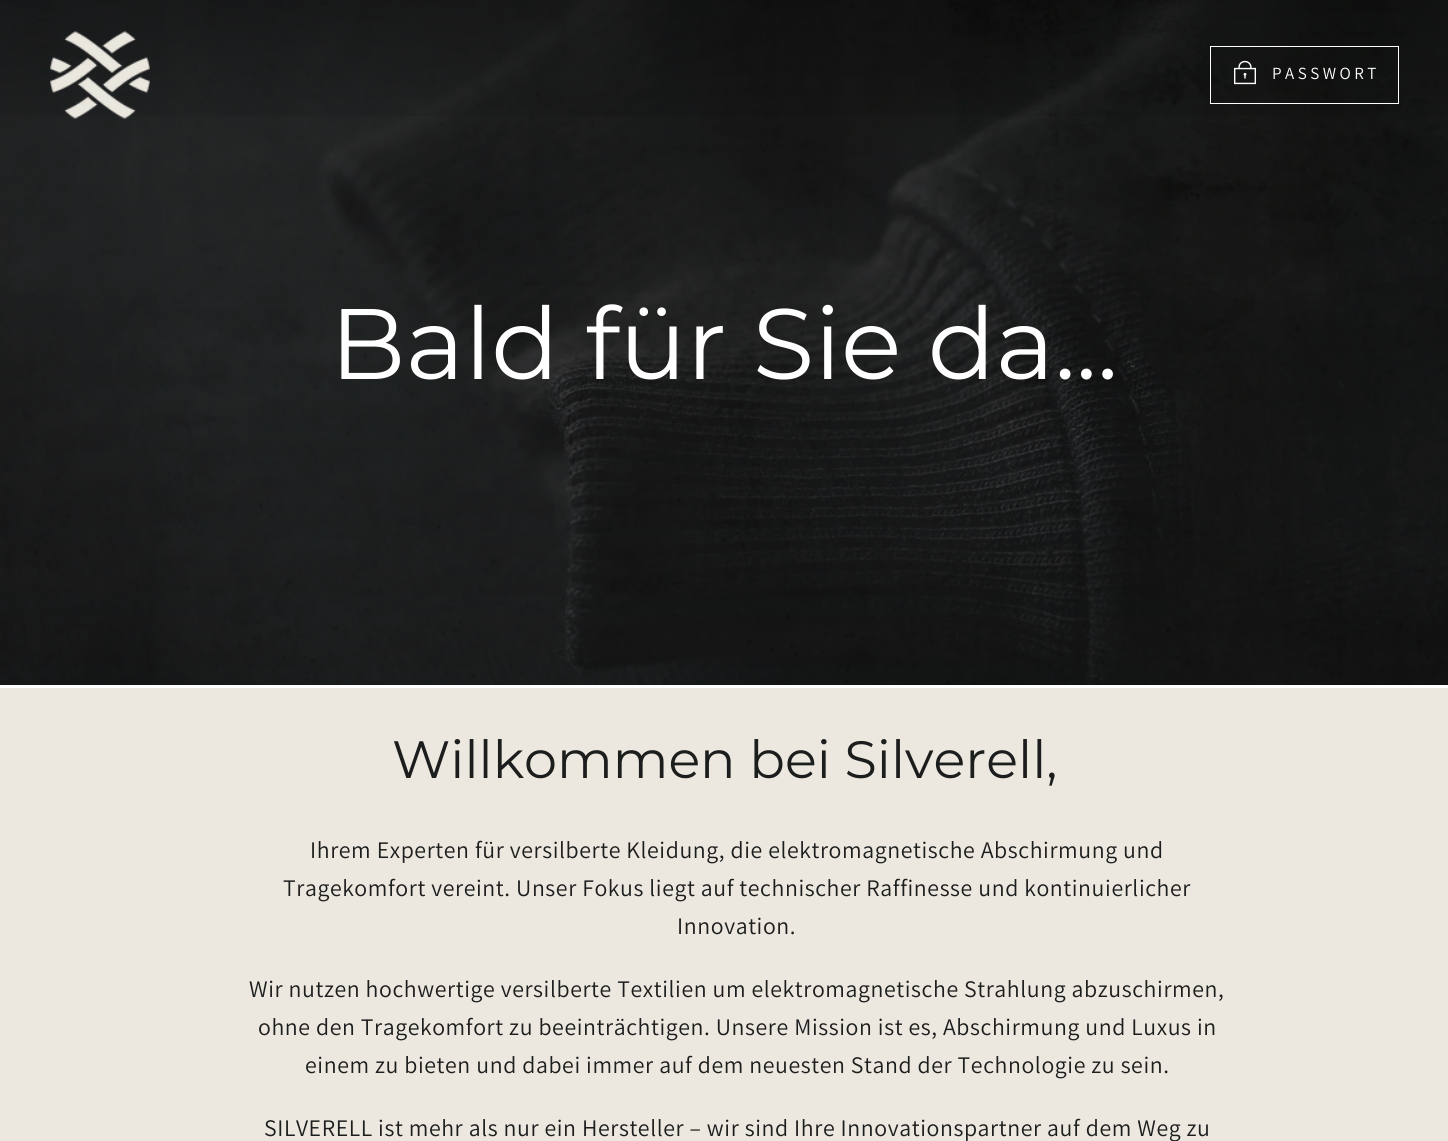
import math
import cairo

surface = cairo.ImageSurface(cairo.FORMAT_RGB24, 1448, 1141)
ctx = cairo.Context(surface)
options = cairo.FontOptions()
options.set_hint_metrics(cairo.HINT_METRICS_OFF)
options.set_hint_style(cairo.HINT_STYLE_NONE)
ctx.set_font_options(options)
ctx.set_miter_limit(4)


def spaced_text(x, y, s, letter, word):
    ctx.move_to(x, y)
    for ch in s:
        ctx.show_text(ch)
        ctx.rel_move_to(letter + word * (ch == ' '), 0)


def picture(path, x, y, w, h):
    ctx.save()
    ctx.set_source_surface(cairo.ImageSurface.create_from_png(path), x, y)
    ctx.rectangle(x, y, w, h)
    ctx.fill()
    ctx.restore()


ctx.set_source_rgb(0.922, 0.91, 0.878)
ctx.paint()
picture("img3.png", 0, 0, 1448, 685)
gradient = cairo.LinearGradient(724, 0, 724, 150)
gradient.add_color_stop_rgba(0, 0, 0, 0, 0.3)
gradient.add_color_stop_rgba(1, 0, 0, 0, 0)
ctx.set_source(gradient)
ctx.rectangle(0, 0, 1448, 116)
ctx.fill()
picture("img1.png", 50, 31, 100, 88)
ctx.rectangle(1210.5, 46.5, 188, 57)
ctx.set_source_rgb(1, 1, 1)
ctx.set_line_width(1)
ctx.stroke()
picture("img2.png", 1234, 60, 22, 25)
ctx.select_font_face("Assistant")
ctx.set_font_size(17)
spaced_text(1272, 79, "PASSWORT", 3.5, 0)
gradient = cairo.LinearGradient(724, 0, 724, 688)
gradient.add_color_stop_rgba(0, 0.067, 0.071, 0.071, 0)
gradient.add_color_stop_rgba(0.4, 0.067, 0.071, 0.071, 0)
gradient.add_color_stop_rgba(1, 0.067, 0.071, 0.071, 0.32)
ctx.set_source(gradient)
ctx.rectangle(0, 362, 1166, 323)
ctx.fill()
ctx.select_font_face("Montserrat")
ctx.set_font_size(100)
ctx.set_source_rgb(1, 1, 1)
ctx.move_to(330, 379)
ctx.show_text("Bald für Sie da...")
ctx.rectangle(0, 685, 1448, 3)
ctx.fill()
ctx.set_font_size(52.5)
ctx.set_source_rgb(0.11, 0.114, 0.114)
ctx.move_to(392, 778)
ctx.show_text("Willkommen bei Silverell,")
ctx.select_font_face("Assistant")
ctx.set_font_size(23.75)
spaced_text(310, 858, "Ihrem Experten für versilberte Kleidung, die elektromagnetische Abschirmung und", 0.6, 0)
spaced_text(283, 896, "Tragekomfort vereint. Unser Fokus liegt auf technischer Raffinesse und kontinuierlicher", 0.6, 0)
spaced_text(677, 934, "Innovation.", 0.6, 0)
spaced_text(249, 997, "Wir nutzen hochwertige versilberte Textilien um elektromagnetische Strahlung abzuschirmen,", 0.6, 0)
spaced_text(258, 1035, "ohne den Tragekomfort zu beeinträchtigen. Unsere Mission ist es, Abschirmung und Luxus in", 0.6, 0)
spaced_text(305, 1073, "einem zu bieten und dabei immer auf dem neuesten Stand der Technologie zu sein.", 0.6, 0)
spaced_text(264, 1136, "SILVERELL ist mehr als nur ein Hersteller – wir sind Ihre Innovationspartner auf dem Weg zu", 0.6, 0)
surface.write_to_png("page.png")
